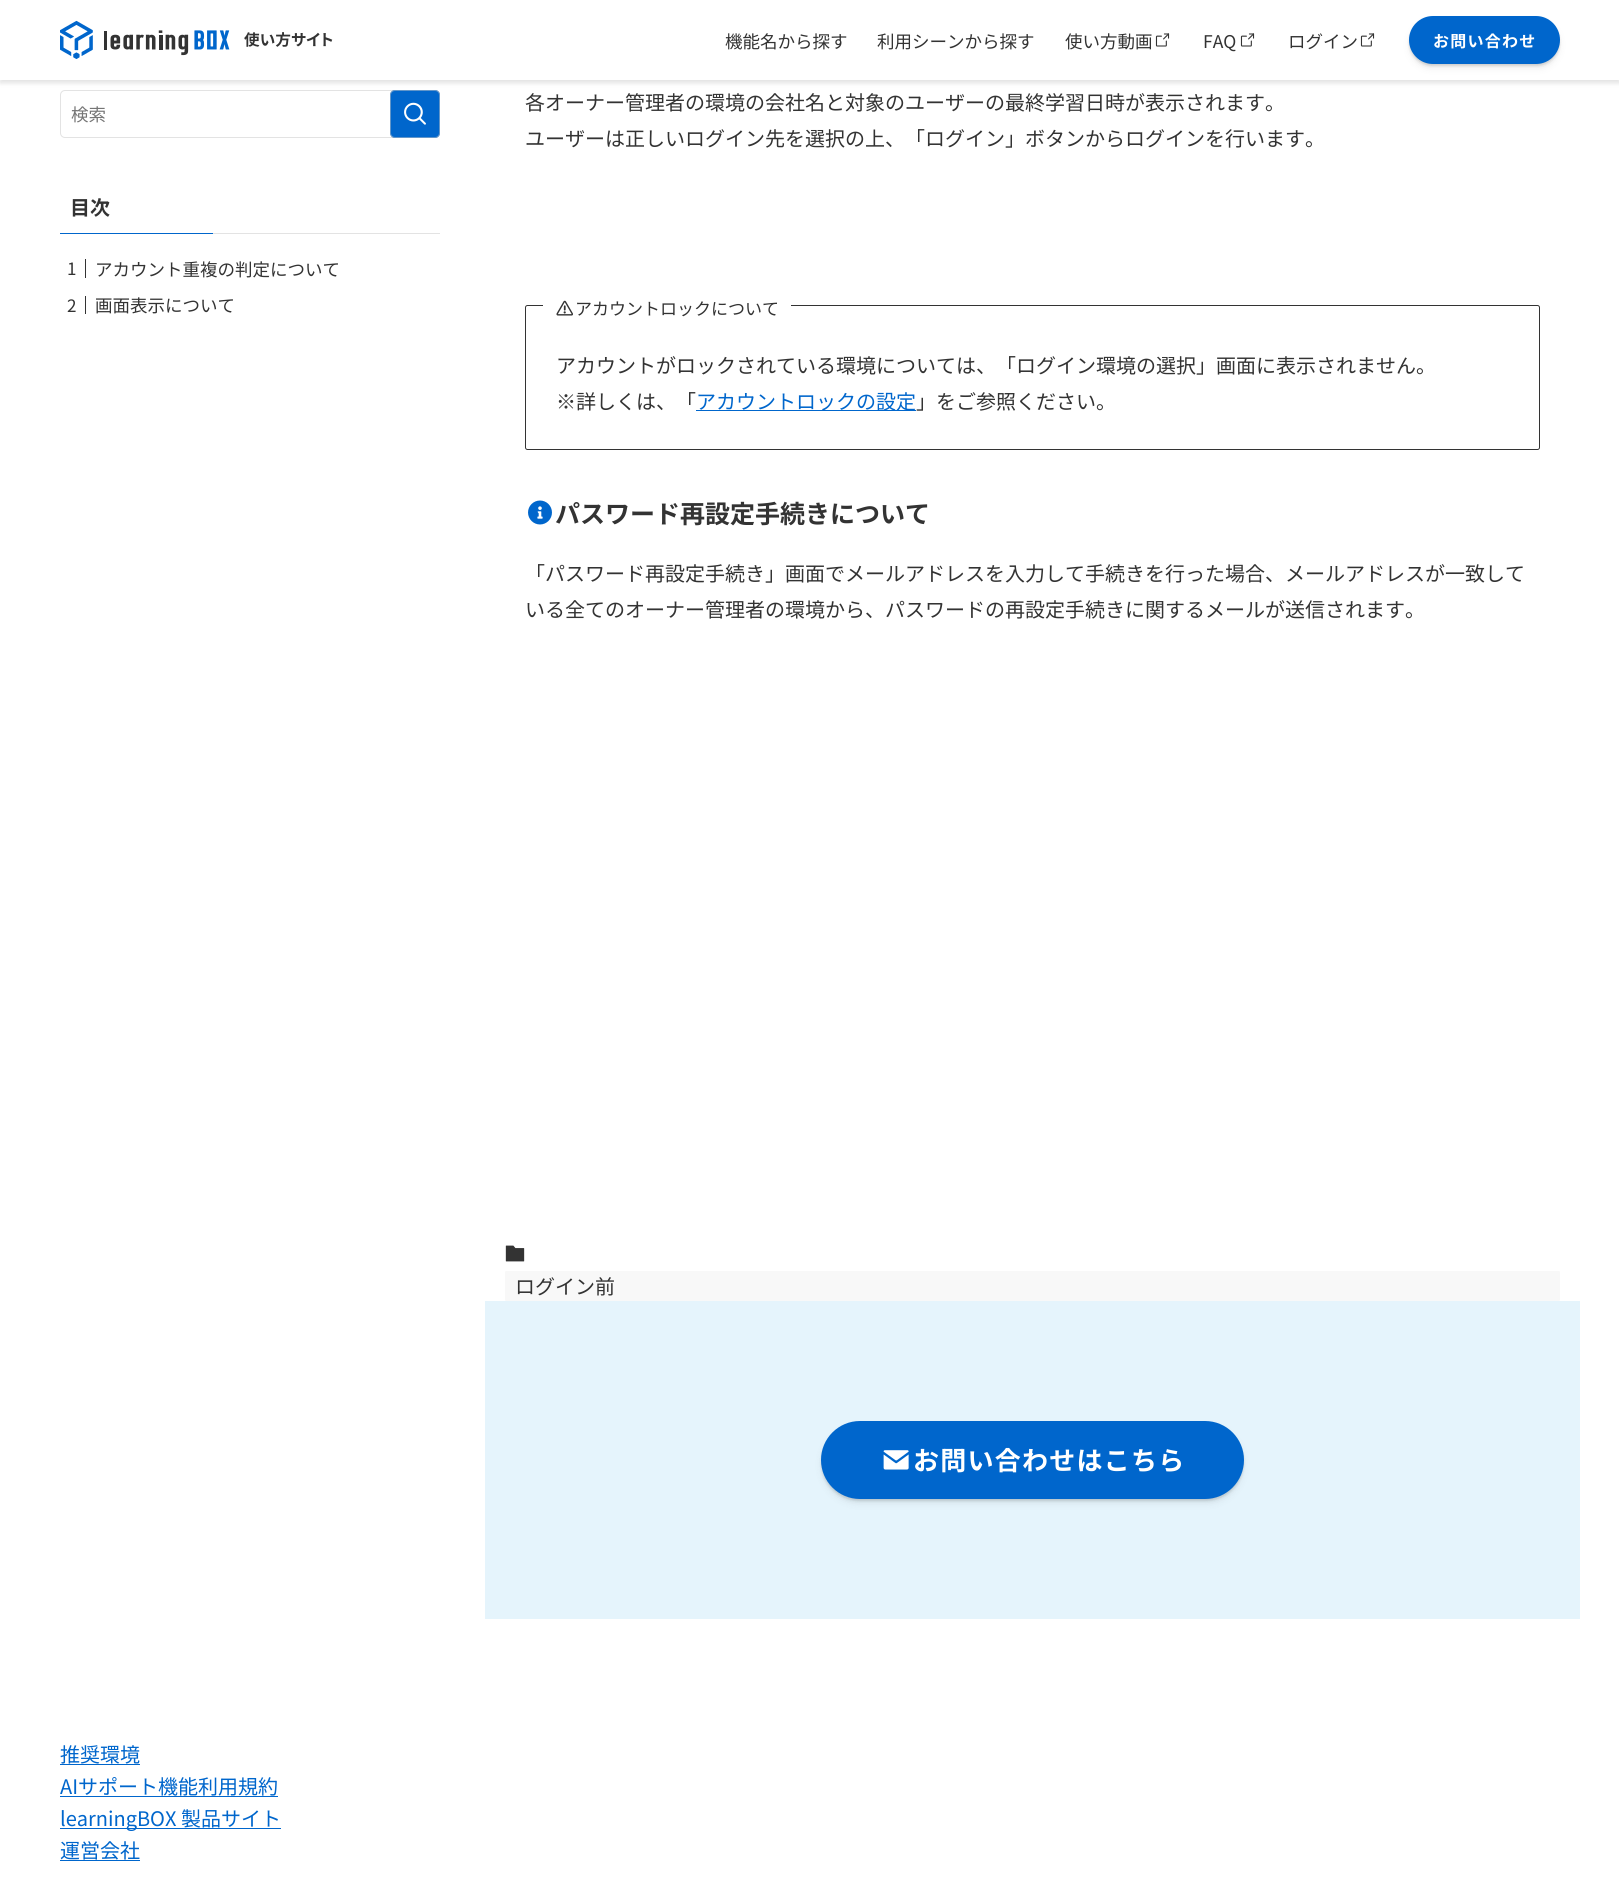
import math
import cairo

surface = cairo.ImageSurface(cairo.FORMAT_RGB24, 1619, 1883)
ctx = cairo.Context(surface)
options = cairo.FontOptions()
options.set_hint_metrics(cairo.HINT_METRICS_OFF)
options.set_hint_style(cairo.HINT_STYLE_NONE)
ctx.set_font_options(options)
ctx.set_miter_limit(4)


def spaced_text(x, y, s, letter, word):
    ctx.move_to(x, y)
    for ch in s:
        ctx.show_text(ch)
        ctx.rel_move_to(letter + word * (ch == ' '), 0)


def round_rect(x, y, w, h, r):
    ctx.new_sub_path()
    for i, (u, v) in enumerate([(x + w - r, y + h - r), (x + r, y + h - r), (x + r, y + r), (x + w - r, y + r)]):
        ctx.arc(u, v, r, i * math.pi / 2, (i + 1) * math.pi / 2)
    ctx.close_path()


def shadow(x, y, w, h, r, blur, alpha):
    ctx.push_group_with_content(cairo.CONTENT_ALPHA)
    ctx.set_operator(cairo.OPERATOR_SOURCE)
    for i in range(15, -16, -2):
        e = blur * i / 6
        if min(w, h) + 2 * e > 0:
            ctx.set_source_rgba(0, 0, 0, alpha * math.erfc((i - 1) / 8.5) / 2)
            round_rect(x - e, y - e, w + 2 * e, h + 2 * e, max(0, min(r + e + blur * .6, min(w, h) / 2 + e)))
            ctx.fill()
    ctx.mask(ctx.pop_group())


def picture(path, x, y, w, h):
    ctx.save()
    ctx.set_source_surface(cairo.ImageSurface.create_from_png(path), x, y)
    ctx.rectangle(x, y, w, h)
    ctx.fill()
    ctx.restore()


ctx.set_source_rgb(1, 1, 1)
ctx.paint()
round_rect(60.5, 90.5, 379, 47, 4.5)
ctx.set_source_rgb(0.89, 0.89, 0.89)
ctx.set_line_width(1)
ctx.stroke()
ctx.set_source_rgb(0, 0.4, 0.8)
round_rect(390, 90, 50, 48, 5)
ctx.fill()
round_rect(390.5, 90.5, 49, 47, 4.5)
ctx.set_source_rgba(0.78, 0.78, 0.78, 0.5)
ctx.stroke()
ctx.set_source_rgb(0, 0, 0)
shadow(0, 3, 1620, 80, 0, 2.5, 0.12)
ctx.set_source_rgb(1, 1, 1)
ctx.rectangle(0, 0, 1619, 80)
ctx.fill()
picture("img1.png", 60, 20, 273, 39)
ctx.select_font_face("Noto Sans JP")
ctx.set_font_size(17.5)
ctx.set_source_rgb(0.2, 0.2, 0.2)
ctx.move_to(725, 48)
ctx.show_text("機能名から探す")
ctx.move_to(877, 48)
ctx.show_text("利用シーンから探す")
ctx.move_to(1065, 48)
ctx.show_text("使い方動画")
picture("img2.png", 1155, 33, 15, 14)
ctx.move_to(1203, 48)
ctx.show_text("FAQ")
picture("img2.png", 1240, 33, 15, 14)
ctx.move_to(1288, 48)
ctx.show_text("ログイン")
picture("img2.png", 1360, 33, 15, 14)
ctx.set_source_rgb(0, 0, 0)
shadow(1414, 26, 141, 38, 19, 5, 0.2)
shadow(1409, 19, 151, 47, 23.5, 1, 0.1)
ctx.set_source_rgb(0, 0.4, 0.8)
round_rect(1409, 16, 151, 48, 24)
ctx.fill()
ctx.select_font_face("Noto Sans JP", cairo.FONT_SLANT_NORMAL, cairo.FONT_WEIGHT_BOLD)
ctx.set_font_size(16)
ctx.set_source_rgb(1, 1, 1)
spaced_text(1433, 47, "お問い合わせ", 1.25, 0)
ctx.select_font_face("Noto Sans JP")
ctx.set_font_size(17.5)
ctx.set_source_rgb(0.459, 0.459, 0.459)
ctx.move_to(71, 121)
ctx.show_text("検索")
picture("img3.png", 404, 102, 22, 23)
ctx.select_font_face("Noto Sans JP", cairo.FONT_SLANT_NORMAL, cairo.FONT_WEIGHT_BOLD)
ctx.set_font_size(20)
ctx.set_source_rgb(0.2, 0.2, 0.2)
ctx.move_to(70, 215)
ctx.show_text("目次")
ctx.set_source_rgb(0, 0.4, 0.8)
ctx.rectangle(60, 233, 153, 1)
ctx.fill()
ctx.set_source_rgb(0.89, 0.89, 0.89)
ctx.rectangle(213, 233, 227, 1)
ctx.fill()
ctx.set_source_rgb(0.2, 0.2, 0.2)
ctx.rectangle(85, 259, 1, 19)
ctx.fill()
ctx.select_font_face("Noto Sans JP")
ctx.set_font_size(17)
ctx.move_to(67, 275)
ctx.show_text("1")
ctx.set_font_size(17.5)
ctx.move_to(95, 276)
ctx.show_text("アカウント重複の判定について")
ctx.rectangle(85, 296, 1, 18)
ctx.fill()
ctx.set_font_size(17)
ctx.move_to(67, 312)
ctx.show_text("2")
ctx.set_font_size(17.5)
ctx.move_to(95, 312)
ctx.show_text("画面表示について")
ctx.set_font_size(20)
ctx.move_to(525, 110)
ctx.show_text("各オーナー管理者の環境の会社名と対象のユーザーの最終学習日時が表示されます。")
ctx.move_to(525, 146)
ctx.show_text("ユーザーは正しいログイン先を選択の上、「ログイン」ボタンからログインを行います。")
round_rect(525.5, 305.5, 1014, 144, 2)
ctx.stroke()
ctx.set_source_rgb(1, 1, 1)
ctx.new_path()
ctx.move_to(545.5, 291)
ctx.line_to(788.5, 291)
ctx.curve_to(790, 291, 791, 292, 791, 293.5)
ctx.line_to(791, 325)
ctx.line_to(543, 325)
ctx.line_to(543, 293.5)
ctx.curve_to(543, 292, 544, 291, 545.5, 291)
ctx.close_path()
ctx.fill()
picture("img4.png", 556, 300, 17, 16)
ctx.set_font_size(17)
ctx.set_source_rgb(0.2, 0.2, 0.2)
ctx.move_to(575, 315)
ctx.show_text("アカウントロックについて")
ctx.set_font_size(20)
ctx.move_to(556, 373)
ctx.show_text("アカウントがロックされている環境については、「ログイン環境の選択」画面に表示されません。")
ctx.move_to(556, 409)
ctx.show_text("※詳しくは、「")
ctx.set_source_rgb(0, 0.4, 0.8)
ctx.rectangle(696, 410, 220, 1)
ctx.fill()
ctx.move_to(696, 409)
ctx.show_text("アカウントロックの設定")
ctx.set_source_rgb(0.2, 0.2, 0.2)
ctx.move_to(916, 409)
ctx.show_text("」をご参照ください。")
picture("img5.png", 528, 500, 24, 25)
ctx.select_font_face("Noto Sans JP", cairo.FONT_SLANT_NORMAL, cairo.FONT_WEIGHT_BOLD)
ctx.set_font_size(25)
ctx.move_to(555, 523)
ctx.show_text("パスワード再設定手続きについて")
ctx.select_font_face("Noto Sans JP")
ctx.set_font_size(20)
ctx.move_to(525, 581)
ctx.show_text("「パスワード再設定手続き」画面でメールアドレスを入力して手続きを行った場合、メールアドレスが一致して")
ctx.move_to(525, 617)
ctx.show_text("いる全てのオーナー管理者の環境から、パスワードの再設定手続きに関するメールが送信されます。")
picture("img6.png", 505, 1245, 20, 17)
ctx.set_source_rgb(0.969, 0.969, 0.969)
round_rect(505, 1271, 1055, 30, 1)
ctx.fill()
ctx.set_source_rgb(0.2, 0.2, 0.2)
ctx.move_to(515, 1294)
ctx.show_text("ログイン前")
ctx.set_source_rgb(0.898, 0.957, 0.988)
ctx.rectangle(485, 1301, 1095, 318)
ctx.fill()
ctx.set_source_rgb(0, 0, 0)
shadow(826, 1431, 413, 68, 34, 5, 0.2)
shadow(821, 1424, 423, 77, 38.5, 1, 0.1)
ctx.set_source_rgb(0, 0.4, 0.8)
round_rect(821, 1421, 423, 78, 39)
ctx.fill()
picture("img7.png", 883, 1450, 26, 20)
ctx.select_font_face("Noto Sans JP", cairo.FONT_SLANT_NORMAL, cairo.FONT_WEIGHT_BOLD)
ctx.set_font_size(26)
ctx.set_source_rgb(1, 1, 1)
spaced_text(913, 1470, "お問い合わせはこちら", 1.25, 0)
ctx.select_font_face("Noto Sans JP")
ctx.set_font_size(20)
ctx.set_source_rgb(0, 0.4, 0.8)
ctx.move_to(60, 1762)
ctx.show_text("推奨環境")
ctx.rectangle(60, 1764, 80, 1)
ctx.fill()
ctx.move_to(60, 1794)
ctx.show_text("AIサポート機能利用規約")
ctx.rectangle(60, 1796, 218, 1)
ctx.fill()
ctx.rectangle(60, 1828, 221, 1)
ctx.fill()
ctx.move_to(60, 1826)
ctx.show_text("learningBOX 製品サイト")
ctx.move_to(60, 1858)
ctx.show_text("運営会社")
ctx.rectangle(60, 1860, 80, 1)
ctx.fill()
surface.write_to_png("page.png")
